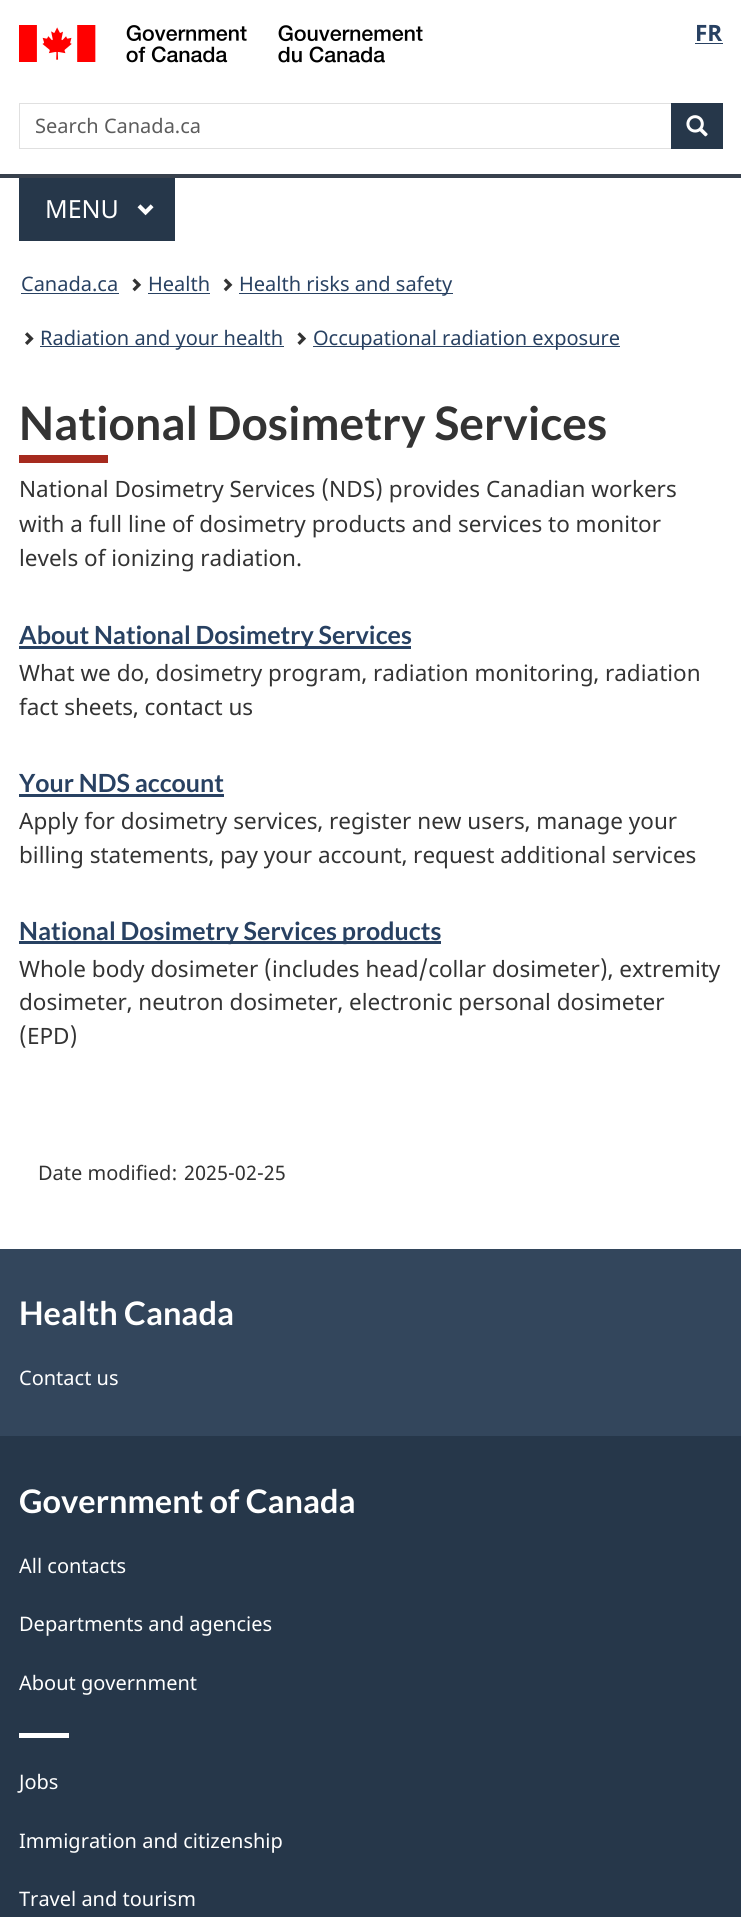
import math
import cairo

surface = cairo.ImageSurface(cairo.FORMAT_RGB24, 741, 1917)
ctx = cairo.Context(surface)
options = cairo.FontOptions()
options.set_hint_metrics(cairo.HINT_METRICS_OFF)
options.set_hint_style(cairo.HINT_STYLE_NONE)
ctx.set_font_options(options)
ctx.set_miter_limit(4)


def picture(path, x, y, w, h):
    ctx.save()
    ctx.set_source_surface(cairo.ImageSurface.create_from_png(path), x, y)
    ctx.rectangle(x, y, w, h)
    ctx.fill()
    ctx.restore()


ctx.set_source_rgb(1, 1, 1)
ctx.paint()
picture("img1.png", 19, 25, 404, 38)
ctx.select_font_face("Noto Sans", cairo.FONT_SLANT_NORMAL, cairo.FONT_WEIGHT_BOLD)
ctx.set_font_size(22.5)
ctx.set_source_rgb(0.157, 0.255, 0.384)
ctx.move_to(695, 41)
ctx.show_text("FR")
ctx.rectangle(695, 43, 28, 1)
ctx.fill()
ctx.rectangle(19.5, 103.5, 703, 45)
ctx.set_source_rgb(0.878, 0.878, 0.878)
ctx.set_line_width(1)
ctx.stroke()
ctx.select_font_face("Noto Sans")
ctx.set_font_size(20)
ctx.set_source_rgb(0.361, 0.361, 0.361)
ctx.move_to(35, 133)
ctx.show_text("Search Canada.ca")
ctx.set_source_rgb(0.149, 0.216, 0.29)
ctx.rectangle(671, 103, 52, 46)
ctx.fill()
picture("img2.png", 686, 115, 22, 22)
ctx.set_source_rgb(0.22, 0.255, 0.302)
ctx.rectangle(0, 174, 741, 4)
ctx.fill()
ctx.set_source_rgb(0.149, 0.216, 0.29)
ctx.rectangle(19, 178, 156, 63)
ctx.fill()
ctx.set_font_size(25)
ctx.set_source_rgb(1, 1, 1)
ctx.move_to(45, 218)
ctx.show_text("MENU")
picture("img3.png", 137, 204, 17, 12)
ctx.set_font_size(20)
ctx.set_source_rgb(0.157, 0.255, 0.384)
ctx.move_to(21, 291)
ctx.show_text("Canada.ca")
ctx.rectangle(21, 293, 98, 1)
ctx.fill()
picture("img4.png", 132, 278, 10, 14)
ctx.move_to(148, 291)
ctx.show_text("Health")
ctx.rectangle(148, 293, 62, 1)
ctx.fill()
picture("img5.png", 223, 278, 10, 14)
ctx.rectangle(239, 293, 214, 1)
ctx.fill()
ctx.move_to(239, 291)
ctx.show_text("Health risks and safety")
picture("img6.png", 25, 332, 9, 13)
ctx.rectangle(40, 346, 244, 1)
ctx.fill()
ctx.move_to(40, 345)
ctx.show_text("Radiation and your health")
picture("img7.png", 297, 332, 10, 13)
ctx.rectangle(313, 346, 307, 1)
ctx.fill()
ctx.move_to(313, 345)
ctx.show_text("Occupational radiation exposure")
ctx.set_source_rgb(0.651, 0.165, 0.118)
ctx.rectangle(19, 455, 89, 8)
ctx.fill()
ctx.select_font_face("Lato", cairo.FONT_SLANT_NORMAL, cairo.FONT_WEIGHT_BOLD)
ctx.set_font_size(46.25)
ctx.set_source_rgb(0.2, 0.2, 0.2)
ctx.move_to(19, 440)
ctx.show_text("National Dosimetry Services")
ctx.select_font_face("Noto Sans")
ctx.set_font_size(22.5)
ctx.move_to(19, 497)
ctx.show_text("National Dosimetry Services (NDS) provides Canadian workers")
ctx.move_to(19, 532)
ctx.show_text("with a full line of dosimetry products and services to monitor")
ctx.move_to(19, 566)
ctx.show_text("levels of ionizing radiation.")
ctx.set_source_rgb(0.157, 0.255, 0.384)
ctx.rectangle(19, 646, 392, 3)
ctx.fill()
ctx.select_font_face("Lato", cairo.FONT_SLANT_NORMAL, cairo.FONT_WEIGHT_BOLD)
ctx.set_font_size(25)
ctx.move_to(19, 644)
ctx.show_text("About National Dosimetry Services")
ctx.select_font_face("Noto Sans")
ctx.set_font_size(22.5)
ctx.set_source_rgb(0.2, 0.2, 0.2)
ctx.move_to(19, 681)
ctx.show_text("What we do, dosimetry program, radiation monitoring, radiation")
ctx.move_to(19, 715)
ctx.show_text("fact sheets, contact us")
ctx.select_font_face("Lato", cairo.FONT_SLANT_NORMAL, cairo.FONT_WEIGHT_BOLD)
ctx.set_font_size(25)
ctx.set_source_rgb(0.157, 0.255, 0.384)
ctx.move_to(19, 792)
ctx.show_text("Your NDS account")
ctx.rectangle(19, 794, 205, 3)
ctx.fill()
ctx.select_font_face("Noto Sans")
ctx.set_font_size(22.5)
ctx.set_source_rgb(0.2, 0.2, 0.2)
ctx.move_to(19, 829)
ctx.show_text("Apply for dosimetry services, register new users, manage your")
ctx.move_to(19, 863)
ctx.show_text("billing statements, pay your account, request additional services")
ctx.set_source_rgb(0.157, 0.255, 0.384)
ctx.rectangle(19, 941, 422, 3)
ctx.fill()
ctx.select_font_face("Lato", cairo.FONT_SLANT_NORMAL, cairo.FONT_WEIGHT_BOLD)
ctx.set_font_size(25)
ctx.move_to(19, 940)
ctx.show_text("National Dosimetry Services products")
ctx.select_font_face("Noto Sans")
ctx.set_font_size(22.5)
ctx.set_source_rgb(0.2, 0.2, 0.2)
ctx.move_to(19, 977)
ctx.show_text("Whole body dosimeter (includes head/collar dosimeter), extremity")
ctx.move_to(19, 1010)
ctx.show_text("dosimeter, neutron dosimeter, electronic personal dosimeter")
ctx.move_to(19, 1044)
ctx.show_text("(EPD)")
ctx.set_font_size(20)
ctx.move_to(38, 1180)
ctx.show_text("Date modified:")
ctx.move_to(184, 1180)
ctx.show_text("2025-02-25")
ctx.set_source_rgb(0.2, 0.275, 0.361)
ctx.rectangle(0, 1249, 741, 187)
ctx.fill()
ctx.select_font_face("Lato", cairo.FONT_SLANT_NORMAL, cairo.FONT_WEIGHT_BOLD)
ctx.set_font_size(32.5)
ctx.set_source_rgb(1, 1, 1)
ctx.move_to(19, 1325)
ctx.show_text("Health Canada")
ctx.select_font_face("Noto Sans")
ctx.set_font_size(20)
ctx.move_to(19, 1385)
ctx.show_text("Contact us")
ctx.set_source_rgb(0.149, 0.216, 0.29)
ctx.rectangle(0, 1436, 741, 481)
ctx.fill()
ctx.select_font_face("Lato", cairo.FONT_SLANT_NORMAL, cairo.FONT_WEIGHT_BOLD)
ctx.set_font_size(32.5)
ctx.set_source_rgb(1, 1, 1)
ctx.move_to(19, 1513)
ctx.show_text("Government of Canada")
ctx.select_font_face("Noto Sans")
ctx.set_font_size(20)
ctx.move_to(19, 1573)
ctx.show_text("All contacts")
ctx.move_to(19, 1631)
ctx.show_text("Departments and agencies")
ctx.move_to(19, 1690)
ctx.show_text("About government")
ctx.rectangle(19, 1733, 50, 5)
ctx.fill()
ctx.move_to(19, 1789)
ctx.show_text("Jobs")
ctx.move_to(19, 1848)
ctx.show_text("Immigration and citizenship")
ctx.move_to(19, 1906)
ctx.show_text("Travel and tourism")
surface.write_to_png("page.png")
